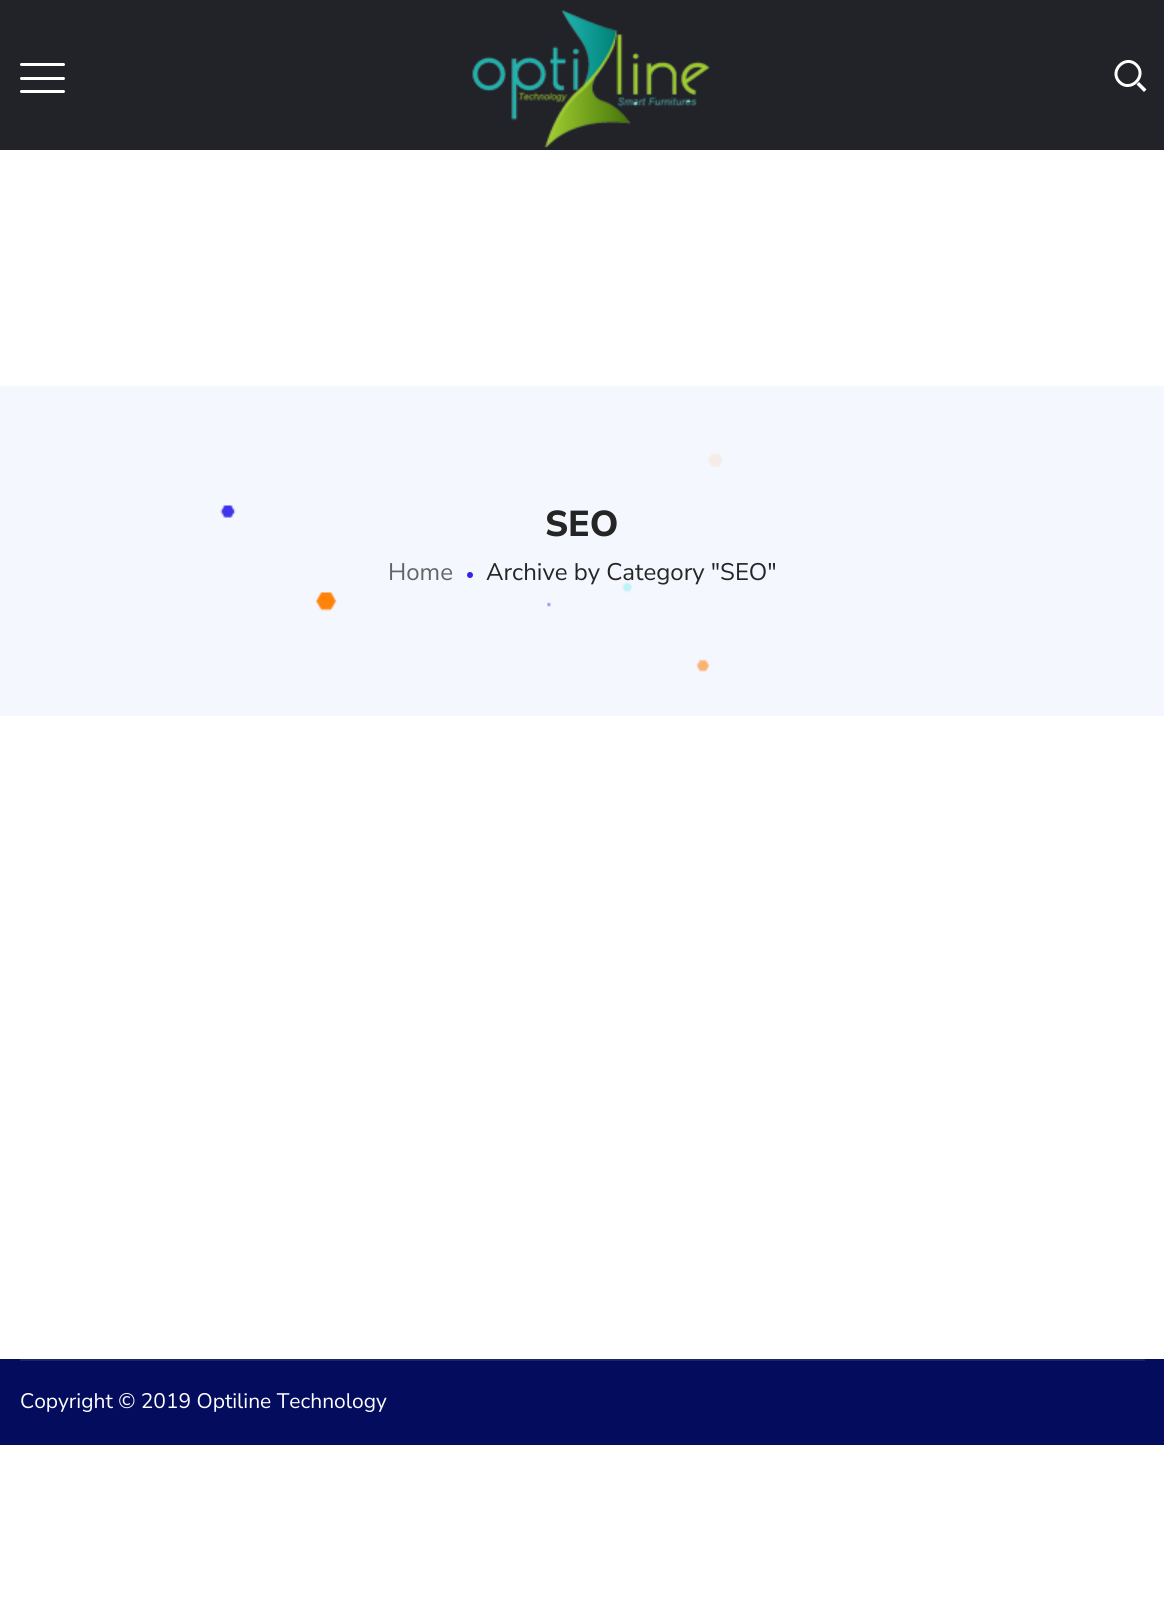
import math
import cairo

surface = cairo.ImageSurface(cairo.FORMAT_RGB24, 1164, 1606)
ctx = cairo.Context(surface)
options = cairo.FontOptions()
options.set_hint_metrics(cairo.HINT_METRICS_OFF)
options.set_hint_style(cairo.HINT_STYLE_NONE)
ctx.set_font_options(options)
ctx.set_miter_limit(4)


def round_rect(x, y, w, h, r):
    ctx.new_sub_path()
    for i, (u, v) in enumerate([(x + w - r, y + h - r), (x + r, y + h - r), (x + r, y + r), (x + w - r, y + r)]):
        ctx.arc(u, v, r, i * math.pi / 2, (i + 1) * math.pi / 2)
    ctx.close_path()


def picture(path, x, y, w, h):
    ctx.save()
    ctx.set_source_surface(cairo.ImageSurface.create_from_png(path), x, y)
    ctx.rectangle(x, y, w, h)
    ctx.fill()
    ctx.restore()


ctx.set_source_rgb(1, 1, 1)
ctx.paint()
ctx.set_source_rgb(0.133, 0.137, 0.157)
ctx.rectangle(0, 0, 1164, 150)
ctx.fill()
ctx.set_source_rgb(1, 1, 1)
round_rect(20, 63, 45, 3, 1.5)
ctx.fill()
round_rect(20, 77, 45, 3, 1.5)
ctx.fill()
round_rect(20, 90, 45, 3, 1.5)
ctx.fill()
picture("img1.png", 472, 10, 238, 138)
ctx.new_path()
ctx.move_to(1136.5, 65)
ctx.curve_to(1147.5, 76, 1130.5, 93, 1119.5, 82)
ctx.curve_to(1108.5, 71, 1125.5, 54, 1136.5, 65)
ctx.close_path()
ctx.set_line_width(3)
ctx.stroke()
ctx.new_path()
ctx.move_to(1136.5, 84.5)
ctx.line_to(1139, 82)
ctx.line_to(1146.5, 89.5)
ctx.line_to(1144, 92)
ctx.close_path()
ctx.fill()
ctx.set_source_rgb(0.957, 0.965, 0.992)
ctx.rectangle(0, 386, 1164, 330)
ctx.fill()
picture("img2.png", 220, 453, 503, 220)
ctx.select_font_face("Nunito Sans ExtraBold")
ctx.set_font_size(36)
ctx.set_source_rgb(0.145, 0.145, 0.145)
ctx.move_to(545, 536)
ctx.show_text("SEO")
ctx.select_font_face("Nunito Sans")
ctx.set_font_size(24)
ctx.set_source_rgb(0.388, 0.392, 0.4)
ctx.move_to(388, 580)
ctx.show_text("Home")
ctx.set_source_rgb(0.196, 0.141, 0.914)
ctx.new_path()
ctx.arc(470, 575, 3, 0, 2 * math.pi)
ctx.fill()
ctx.set_source_rgb(0.145, 0.145, 0.145)
ctx.move_to(486, 580)
ctx.show_text("Archive by Category \"SEO\"")
ctx.set_source_rgb(0.016, 0.047, 0.369)
ctx.rectangle(0, 1359, 1164, 86)
ctx.fill()
ctx.set_source_rgb(0.114, 0.141, 0.431)
ctx.rectangle(20, 1359, 1125, 2)
ctx.fill()
ctx.set_font_size(21)
ctx.set_source_rgb(1, 1, 1)
ctx.move_to(20, 1408)
ctx.show_text("Copyright © 2019 Optiline Technology")
surface.write_to_png("page.png")
